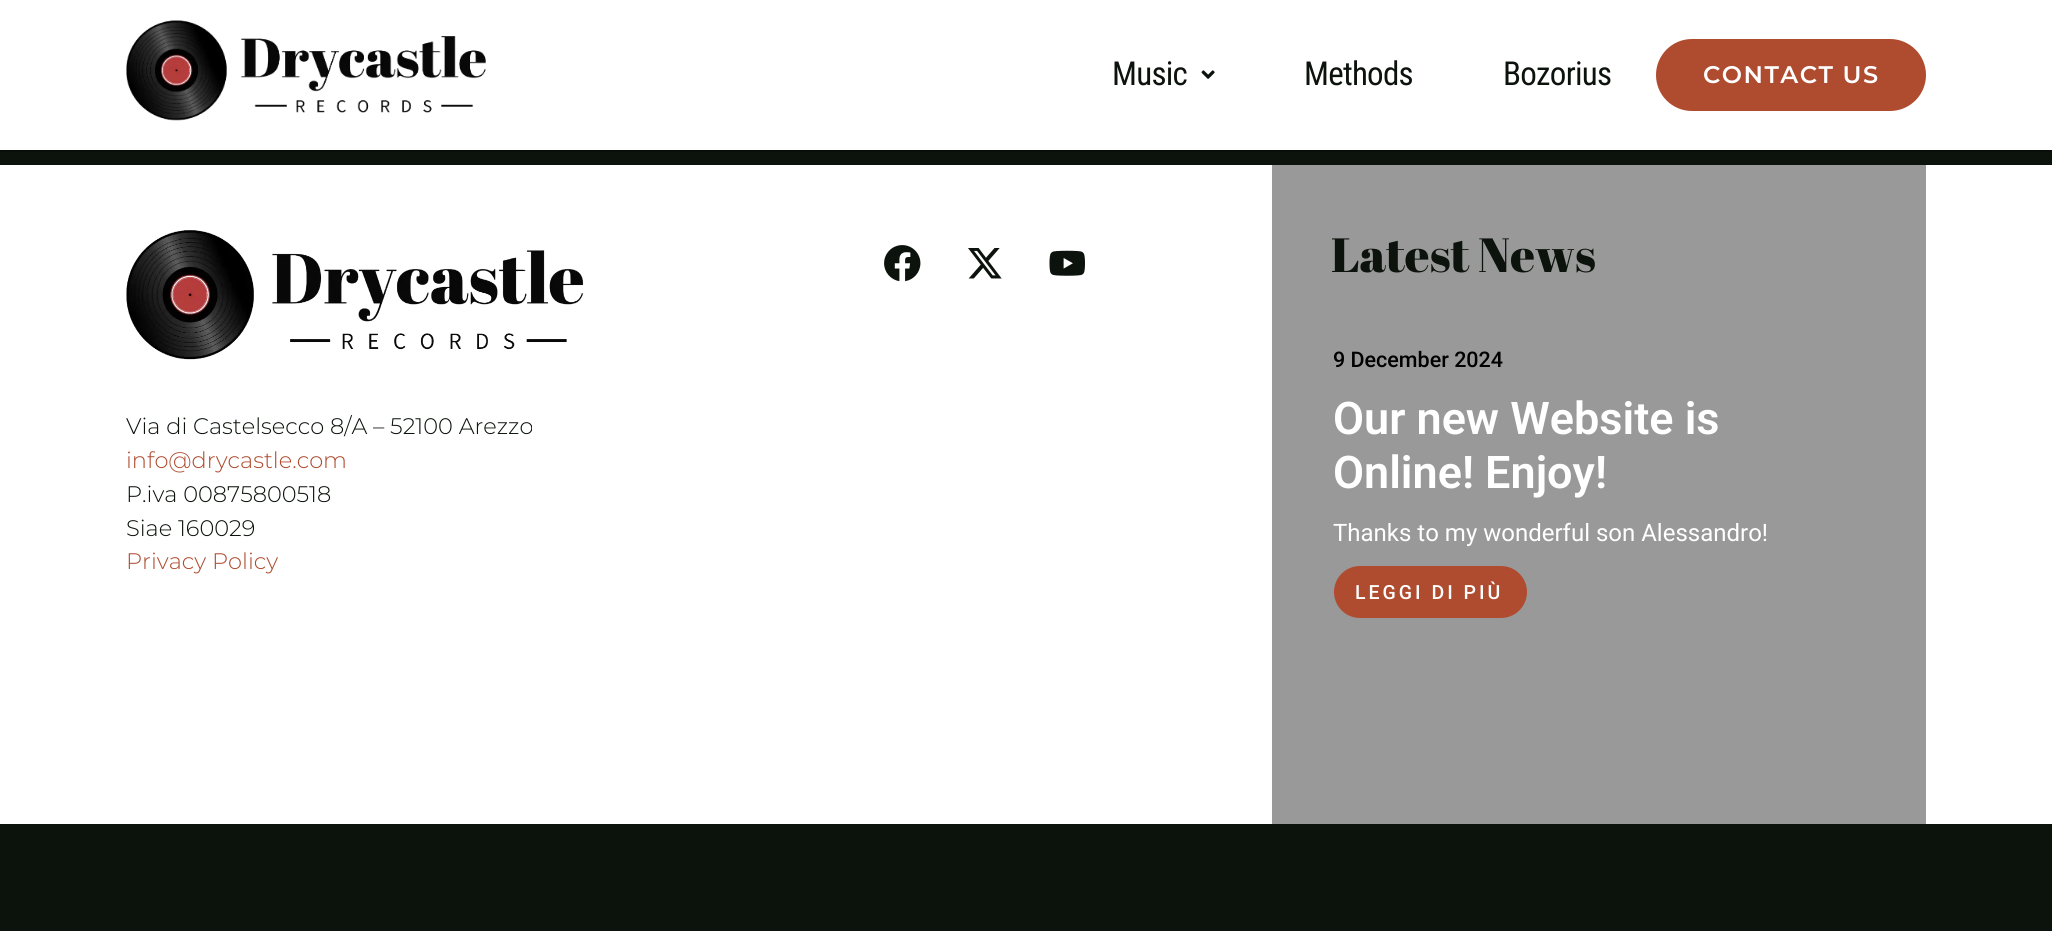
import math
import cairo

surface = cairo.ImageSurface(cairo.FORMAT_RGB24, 2052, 931)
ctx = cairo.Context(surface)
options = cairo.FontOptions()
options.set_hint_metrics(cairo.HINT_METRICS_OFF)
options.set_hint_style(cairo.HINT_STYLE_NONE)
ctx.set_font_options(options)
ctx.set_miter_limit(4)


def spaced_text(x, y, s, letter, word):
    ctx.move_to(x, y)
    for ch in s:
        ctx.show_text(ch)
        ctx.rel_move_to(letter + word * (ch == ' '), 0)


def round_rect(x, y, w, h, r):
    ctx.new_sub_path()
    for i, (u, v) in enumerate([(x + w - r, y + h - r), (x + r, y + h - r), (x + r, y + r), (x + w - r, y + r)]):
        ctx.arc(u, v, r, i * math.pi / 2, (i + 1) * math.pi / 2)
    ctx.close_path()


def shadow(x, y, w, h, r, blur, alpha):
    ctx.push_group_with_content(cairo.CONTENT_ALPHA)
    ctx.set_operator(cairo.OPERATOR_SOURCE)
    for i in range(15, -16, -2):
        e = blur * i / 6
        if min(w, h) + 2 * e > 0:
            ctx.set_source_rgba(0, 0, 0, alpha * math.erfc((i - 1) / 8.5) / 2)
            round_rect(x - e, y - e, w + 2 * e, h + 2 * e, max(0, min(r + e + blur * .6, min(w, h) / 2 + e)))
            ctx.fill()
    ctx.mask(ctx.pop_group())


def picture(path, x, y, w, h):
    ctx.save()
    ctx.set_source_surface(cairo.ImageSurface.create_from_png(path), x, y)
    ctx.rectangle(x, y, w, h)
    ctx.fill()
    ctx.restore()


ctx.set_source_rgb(0.047, 0.071, 0.047)
ctx.paint()
ctx.set_source_rgb(0, 0, 0)
shadow(0, 0, 2052, 150, 0, 2, 0.7)
ctx.set_source_rgb(1, 1, 1)
ctx.rectangle(0, 0, 2052, 150)
ctx.fill()
picture("img1.png", 126, 20, 360, 101)
ctx.select_font_face("Roboto Condensed")
ctx.set_font_size(33)
ctx.set_source_rgb(0.047, 0.071, 0.047)
spaced_text(1112, 85, "Music", -0.75, 0)
picture("img2.png", 1201, 70, 14, 9)
spaced_text(1304, 85, "Methods", -0.75, 0)
spaced_text(1503, 85, "Bozorius", -0.75, 0)
ctx.set_source_rgb(0.686, 0.294, 0.184)
round_rect(1657, 40, 268, 70, 35)
ctx.fill_preserve()
ctx.stroke()
ctx.select_font_face("Montserrat SemiBold")
ctx.set_font_size(24)
ctx.set_source_rgb(1, 1, 1)
spaced_text(1703, 83, "CONTACT US", 1.5, 0)
ctx.rectangle(0, 165, 2052, 659)
ctx.fill()
picture("img3.png", 884, 245, 37, 37)
picture("img4.png", 968, 248, 34, 31)
picture("img5.png", 1049, 250, 36, 26)
ctx.set_source_rgb(0.6, 0.6, 0.6)
ctx.rectangle(1272, 165, 654, 659)
ctx.fill()
ctx.select_font_face("Abril Fatface")
ctx.set_font_size(48)
ctx.set_source_rgb(0.047, 0.071, 0.047)
ctx.move_to(1331, 272)
ctx.show_text("Latest News")
ctx.select_font_face("Roboto Medium")
ctx.set_font_size(21.5)
ctx.set_source_rgb(0, 0, 0)
ctx.move_to(1333, 367)
ctx.show_text("9 December 2024")
ctx.select_font_face("Roboto SemiBold")
ctx.set_font_size(45)
ctx.set_source_rgb(1, 1, 1)
ctx.move_to(1333, 434)
ctx.show_text("Our new Website is")
ctx.move_to(1333, 488)
ctx.show_text("Online! Enjoy!")
ctx.select_font_face("Roboto")
ctx.set_font_size(24)
ctx.move_to(1333, 541)
ctx.show_text("Thanks to my wonderful son Alessandro!")
ctx.set_source_rgb(0.686, 0.294, 0.184)
round_rect(1334, 566, 193, 52, 26)
ctx.fill()
ctx.select_font_face("Roboto Medium")
ctx.set_font_size(19.5)
ctx.set_source_rgb(1, 1, 1)
spaced_text(1355, 599, "LEGGI DI PIÙ", 3, 0)
picture("img6.png", 126, 230, 458, 130)
ctx.select_font_face("Montserrat Light")
ctx.set_font_size(22.5)
ctx.set_source_rgb(0.047, 0.071, 0.047)
ctx.move_to(126, 434)
ctx.show_text("Via di Castelsecco 8/A – 52100 Arezzo")
ctx.set_source_rgb(0.686, 0.294, 0.184)
ctx.move_to(126, 468)
ctx.show_text("info@drycastle.com")
ctx.set_source_rgb(0.047, 0.071, 0.047)
ctx.move_to(126, 502)
ctx.show_text("P.iva 00875800518")
ctx.move_to(126, 536)
ctx.show_text("Siae 160029")
ctx.set_source_rgb(0.686, 0.294, 0.184)
ctx.move_to(126, 569)
ctx.show_text("Privacy Policy")
surface.write_to_png("page.png")
